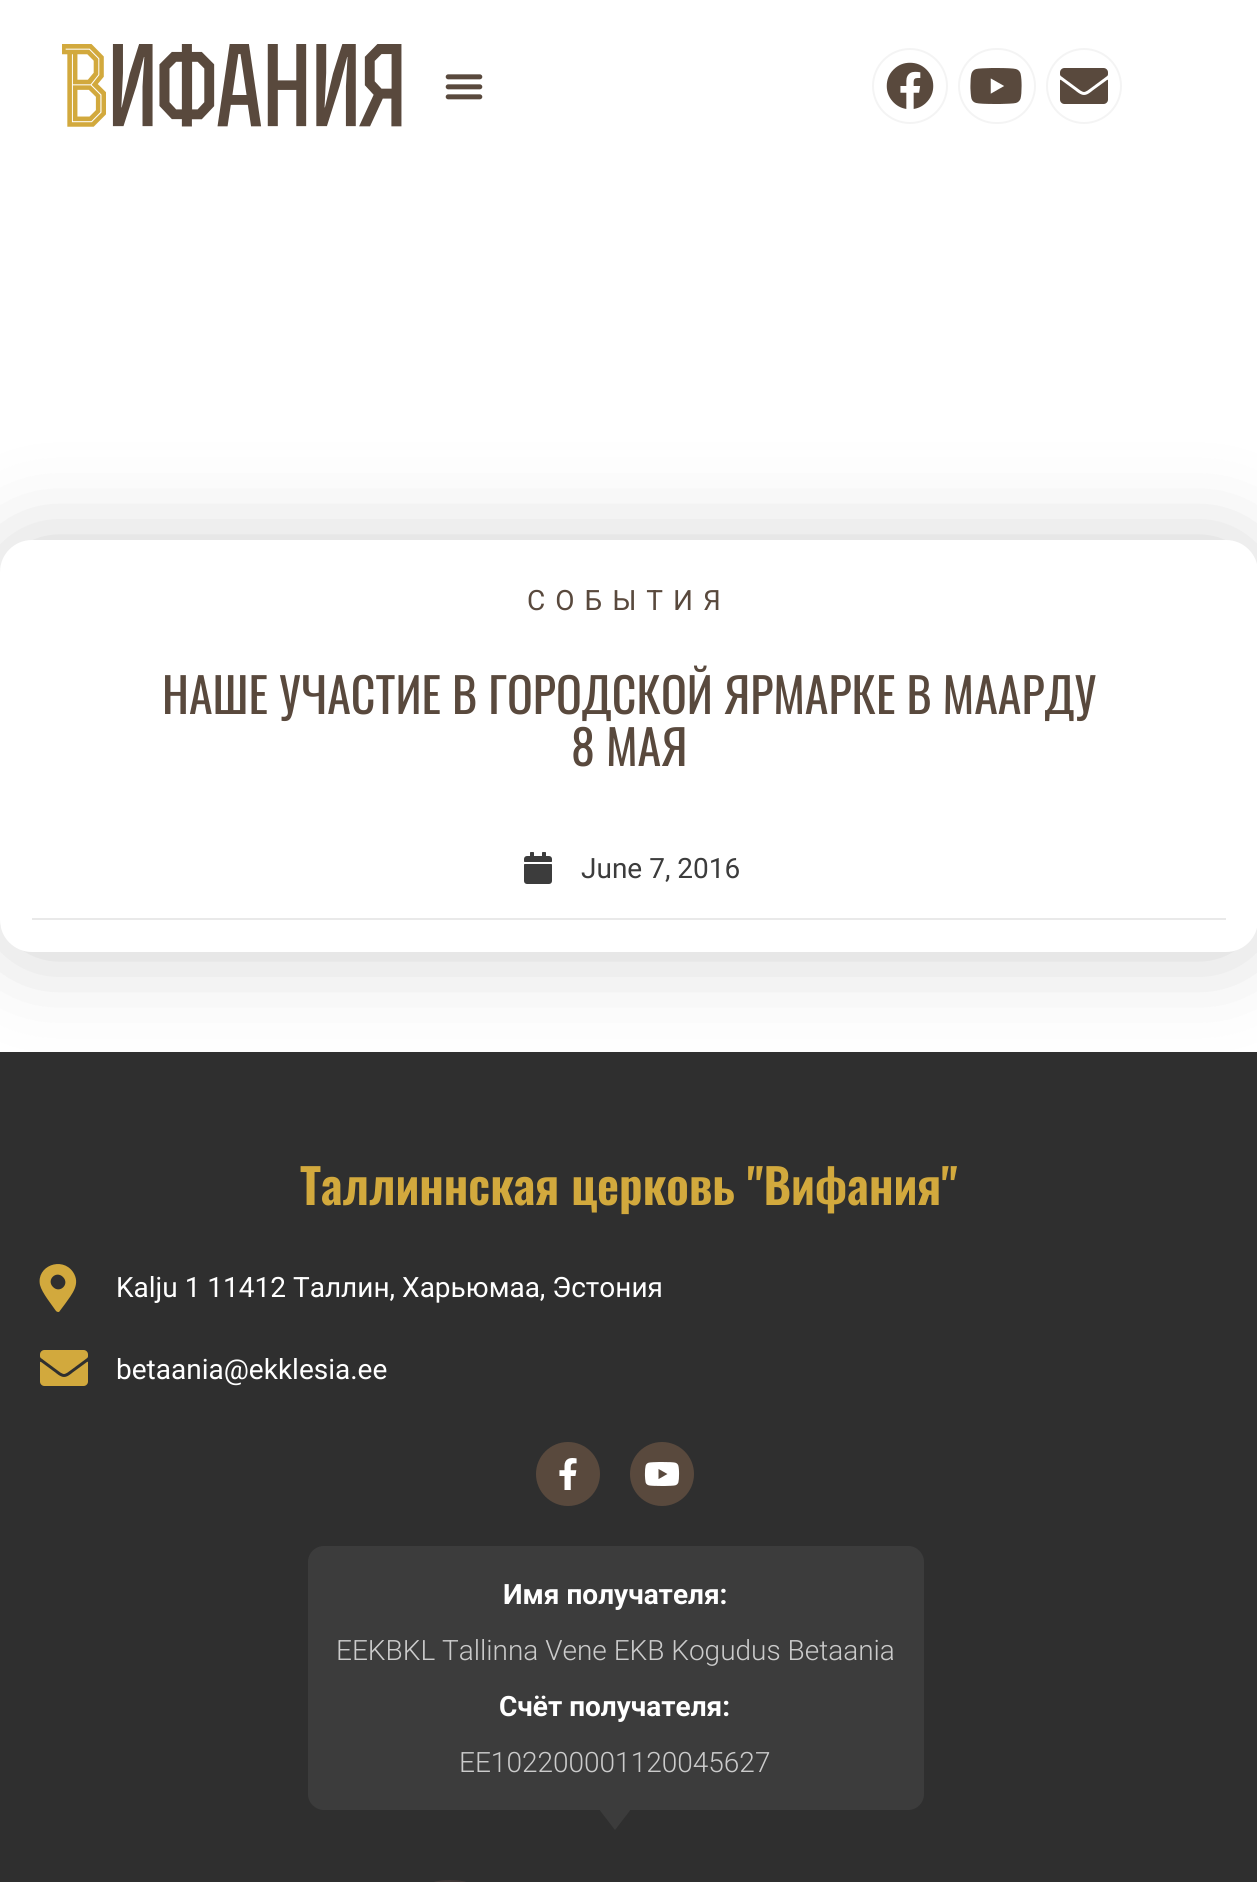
import math
import cairo

surface = cairo.ImageSurface(cairo.FORMAT_RGB24, 1257, 1882)
ctx = cairo.Context(surface)
options = cairo.FontOptions()
options.set_hint_metrics(cairo.HINT_METRICS_OFF)
options.set_hint_style(cairo.HINT_STYLE_NONE)
ctx.set_font_options(options)
ctx.set_miter_limit(4)


def spaced_text(x, y, s, letter, word):
    ctx.move_to(x, y)
    for ch in s:
        ctx.show_text(ch)
        ctx.rel_move_to(letter + word * (ch == ' '), 0)


def round_rect(x, y, w, h, r):
    ctx.new_sub_path()
    for i, (u, v) in enumerate([(x + w - r, y + h - r), (x + r, y + h - r), (x + r, y + r), (x + w - r, y + r)]):
        ctx.arc(u, v, r, i * math.pi / 2, (i + 1) * math.pi / 2)
    ctx.close_path()


def shadow(x, y, w, h, r, blur, alpha):
    ctx.push_group_with_content(cairo.CONTENT_ALPHA)
    ctx.set_operator(cairo.OPERATOR_SOURCE)
    for i in range(15, -16, -2):
        e = blur * i / 6
        if min(w, h) + 2 * e > 0:
            ctx.set_source_rgba(0, 0, 0, alpha * math.erfc((i - 1) / 8.5) / 2)
            round_rect(x - e, y - e, w + 2 * e, h + 2 * e, max(0, min(r + e + blur * .6, min(w, h) / 2 + e)))
            ctx.fill()
    ctx.mask(ctx.pop_group())


def picture(path, x, y, w, h):
    ctx.save()
    ctx.set_source_surface(cairo.ImageSurface.create_from_png(path), x, y)
    ctx.rectangle(x, y, w, h)
    ctx.fill()
    ctx.restore()


ctx.set_source_rgb(1, 1, 1)
ctx.paint()
picture("img1.png", 62, 44, 340, 83)
picture("img2.png", 445, 74, 38, 26)
ctx.arc(910, 86, 37, 0, 2 * math.pi)
ctx.set_source_rgb(0.957, 0.957, 0.957)
ctx.stroke()
picture("img3.png", 886, 62, 48, 47)
round_rect(959, 49, 76, 74, 37)
ctx.stroke()
picture("img4.png", 970, 68, 52, 36)
ctx.arc(1084, 86, 37, 0, 2 * math.pi)
ctx.stroke()
picture("img5.png", 1060, 68, 48, 36)
ctx.set_source_rgb(0, 0, 0)
shadow(0, 542, 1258, 412, 32, 46, 0.19)
ctx.set_source_rgb(1, 1, 1)
round_rect(0, 540, 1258, 412, 32)
ctx.fill()
ctx.select_font_face("Roboto")
ctx.set_font_size(28)
ctx.set_source_rgb(0.349, 0.286, 0.239)
spaced_text(527, 610, "СОБЫТИЯ", 10, 0)
ctx.select_font_face("Oswald")
ctx.set_font_size(48)
ctx.move_to(162, 714)
ctx.show_text("НАШЕ УЧАСТИЕ В ГОРОДСКОЙ ЯРМАРКЕ В МААРДУ")
ctx.move_to(571, 766)
ctx.show_text("8 МАЯ")
ctx.set_source_rgb(0.914, 0.914, 0.914)
ctx.rectangle(32, 918, 1194, 2)
ctx.fill()
picture("img6.png", 524, 852, 28, 32)
ctx.select_font_face("Roboto")
ctx.set_font_size(28)
ctx.set_source_rgb(0.235, 0.235, 0.235)
ctx.move_to(581, 878)
ctx.show_text("June 7, 2016")
ctx.set_source_rgb(0.184, 0.184, 0.184)
ctx.rectangle(0, 1052, 1257, 830)
ctx.fill()
ctx.select_font_face("Oswald SemiBold")
ctx.set_font_size(48)
ctx.set_source_rgb(0.824, 0.663, 0.239)
ctx.move_to(300, 1205)
ctx.show_text("Таллиннская церковь \"Вифания\"")
ctx.new_path()
ctx.move_to(56, 1311)
ctx.curve_to(52, 1305, 42, 1293, 40, 1285)
ctx.curve_to(36, 1266, 62, 1256, 73, 1272)
ctx.curve_to(81, 1284, 72, 1294, 65, 1304)
ctx.line_to(59, 1312)
ctx.curve_to(58, 1312, 57, 1312, 56, 1311)
ctx.close_path()
ctx.move_to(53, 1287)
ctx.curve_to(60, 1294, 70, 1284, 63, 1277)
ctx.curve_to(56, 1270, 46, 1280, 53, 1287)
ctx.close_path()
ctx.fill()
ctx.select_font_face("Roboto")
ctx.set_font_size(28)
ctx.set_source_rgb(1, 1, 1)
ctx.move_to(116, 1297)
ctx.show_text("Kalju 1 11412 Таллин, Харьюмаа, Эстония")
picture("img7.png", 40, 1350, 48, 36)
ctx.move_to(116, 1379)
ctx.show_text("betaania@ekklesia.ee")
ctx.set_source_rgb(0.349, 0.286, 0.239)
ctx.new_path()
ctx.arc(568, 1474, 32, 0, 2 * math.pi)
ctx.fill()
picture("img8.png", 559, 1458, 18, 32)
ctx.arc(662, 1474, 32, 0, 2 * math.pi)
ctx.fill()
picture("img9.png", 644, 1462, 36, 24)
ctx.set_source_rgb(0.235, 0.235, 0.235)
round_rect(308, 1546, 616, 264, 16)
ctx.fill()
ctx.select_font_face("Roboto", cairo.FONT_SLANT_NORMAL, cairo.FONT_WEIGHT_BOLD)
ctx.set_source_rgb(1, 1, 1)
ctx.move_to(503, 1604)
ctx.show_text("Имя получателя:")
ctx.select_font_face("Roboto Light")
ctx.set_source_rgb(0.796, 0.796, 0.796)
ctx.move_to(336, 1660)
ctx.show_text("EEKBKL Tallinna Vene EKB Kogudus Betaania")
ctx.select_font_face("Roboto", cairo.FONT_SLANT_NORMAL, cairo.FONT_WEIGHT_BOLD)
ctx.set_source_rgb(1, 1, 1)
ctx.move_to(499, 1716)
ctx.show_text("Счёт получателя:")
ctx.select_font_face("Roboto Light")
ctx.set_source_rgb(0.796, 0.796, 0.796)
ctx.move_to(459, 1772)
ctx.show_text("EE102200001120045627")
ctx.set_source_rgb(0.235, 0.235, 0.235)
ctx.new_path()
ctx.move_to(615, 1790.5)
ctx.line_to(630, 1810.5)
ctx.line_to(615, 1830)
ctx.line_to(600, 1810.5)
ctx.close_path()
ctx.fill()
picture("img10.png", 434, 1880, 32, 2)
surface.write_to_png("page.png")
